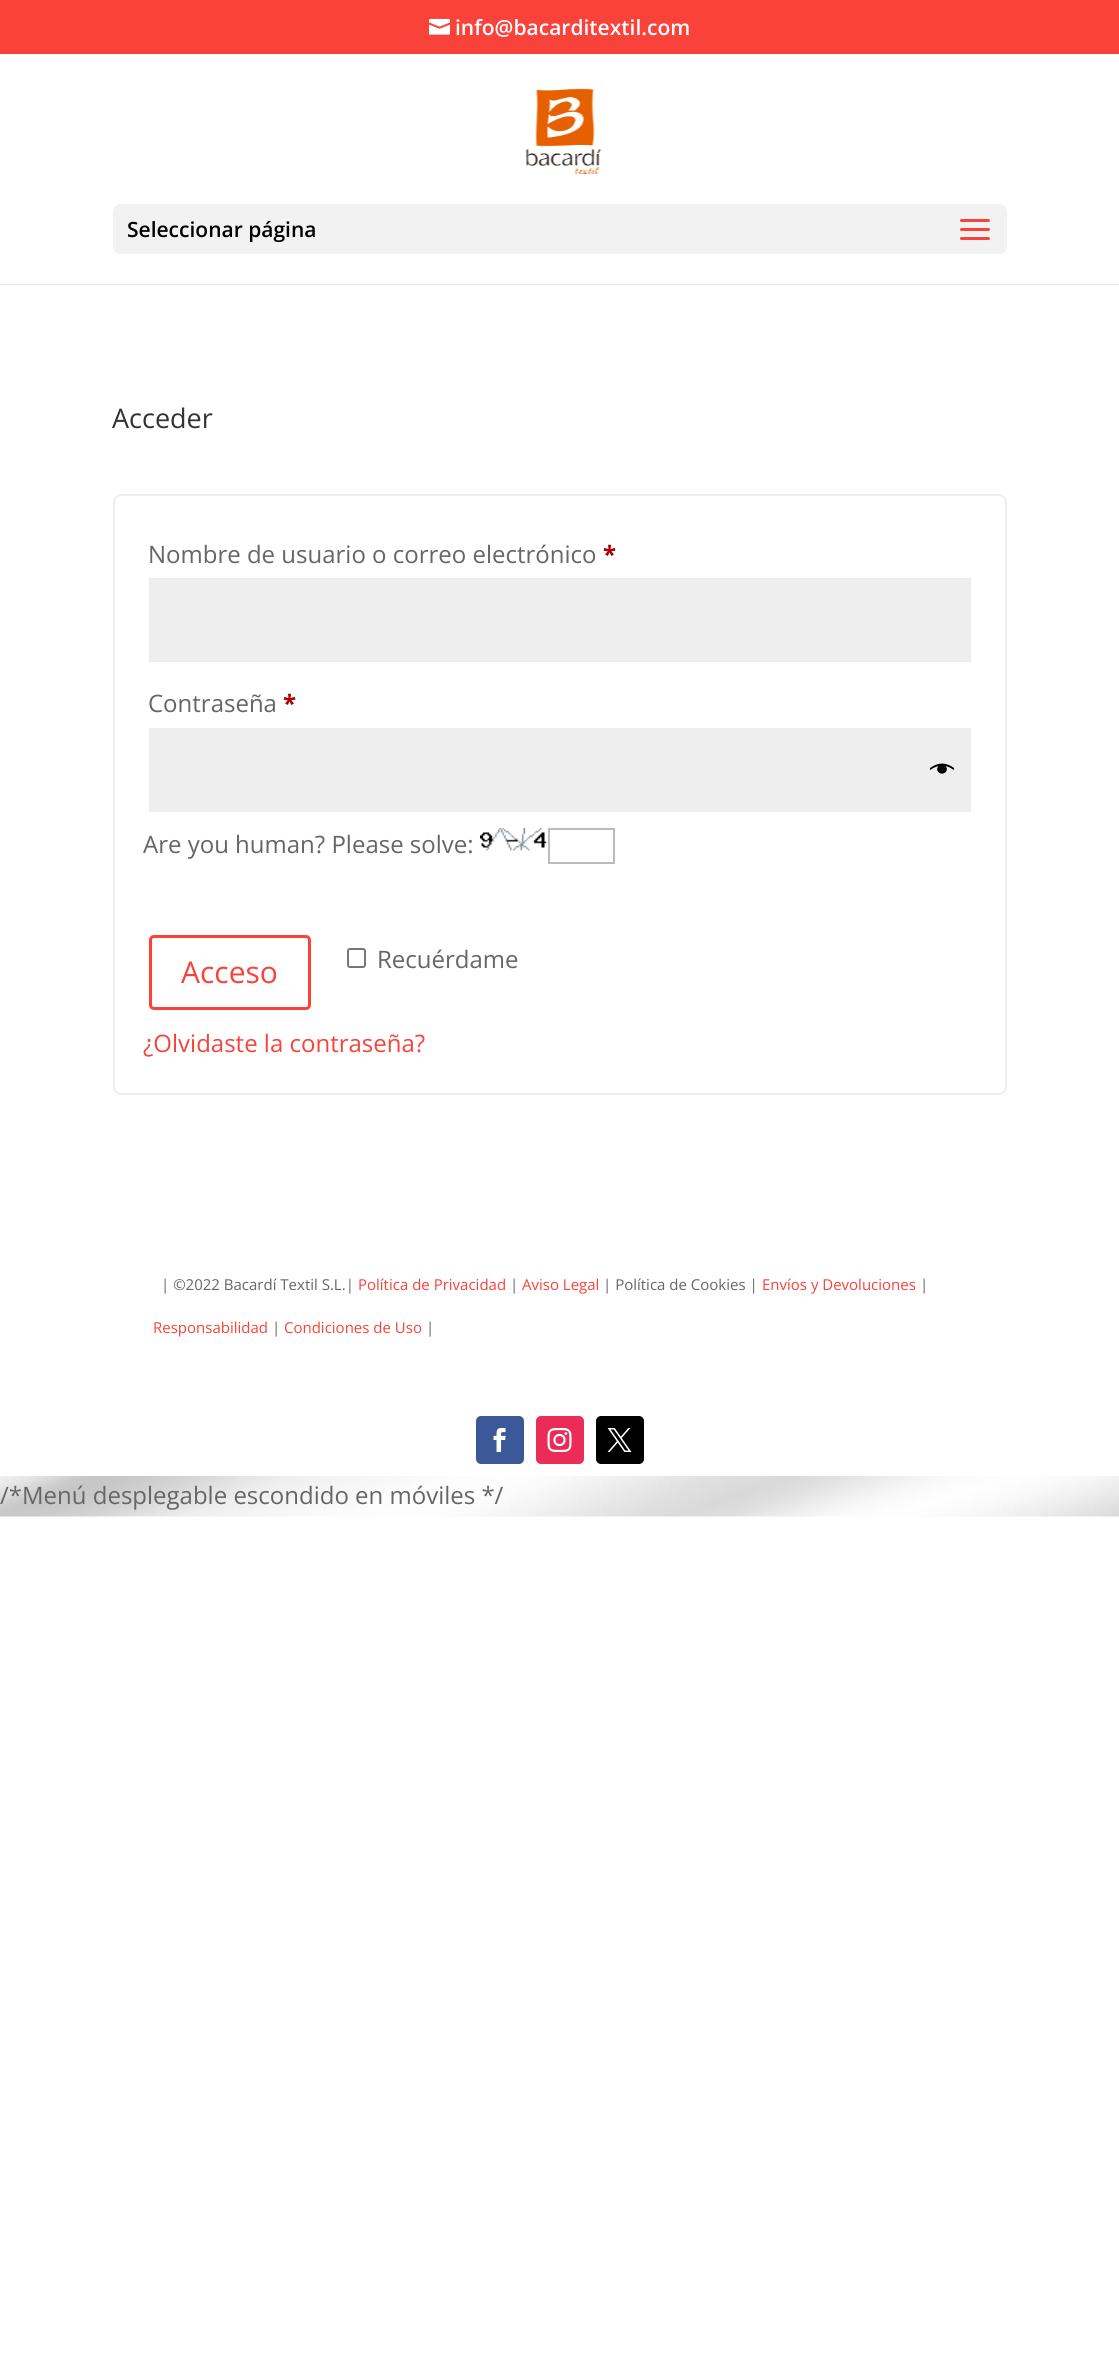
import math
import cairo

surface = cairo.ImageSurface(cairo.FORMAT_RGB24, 1119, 2372)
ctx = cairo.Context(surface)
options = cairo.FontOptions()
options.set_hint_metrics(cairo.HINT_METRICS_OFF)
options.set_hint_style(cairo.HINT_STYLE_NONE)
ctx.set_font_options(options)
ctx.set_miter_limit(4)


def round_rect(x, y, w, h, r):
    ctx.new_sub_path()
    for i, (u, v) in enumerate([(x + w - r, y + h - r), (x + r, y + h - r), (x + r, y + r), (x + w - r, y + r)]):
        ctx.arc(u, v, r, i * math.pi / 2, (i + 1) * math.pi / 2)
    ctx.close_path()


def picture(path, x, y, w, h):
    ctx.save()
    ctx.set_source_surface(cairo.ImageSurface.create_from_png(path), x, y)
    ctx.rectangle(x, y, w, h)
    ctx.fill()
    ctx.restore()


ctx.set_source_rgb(1, 1, 1)
ctx.paint()
picture("img1.png", 0, 1476, 1119, 41)
ctx.set_source_rgb(0.976, 0.259, 0.227)
ctx.rectangle(0, 0, 1119, 54)
ctx.fill()
picture("img2.png", 429, 18, 21, 17)
ctx.select_font_face("Open Sans SemiBold")
ctx.set_font_size(21)
ctx.set_source_rgb(1, 1, 1)
ctx.move_to(455, 35)
ctx.show_text("info@bacarditextil.com")
ctx.set_source_rgb(0.902, 0.902, 0.902)
ctx.rectangle(0, 284, 1119, 1)
ctx.fill()
picture("img3.png", 525, 88, 76, 86)
ctx.set_source_rgb(0.949, 0.949, 0.949)
round_rect(113, 204, 894, 50, 8)
ctx.fill()
ctx.set_source_rgb(0, 0, 0)
ctx.move_to(127, 237)
ctx.show_text("Seleccionar página")
picture("img4.png", 960, 219, 30, 21)
ctx.select_font_face("Open Sans")
ctx.set_font_size(27)
ctx.set_source_rgb(0.2, 0.2, 0.2)
ctx.move_to(112, 428)
ctx.show_text("Acceder")
round_rect(114, 495, 892, 599, 7)
ctx.set_source_rgb(0.933, 0.933, 0.933)
ctx.stroke()
ctx.set_font_size(24)
ctx.set_source_rgb(0.4, 0.4, 0.4)
ctx.move_to(148, 563)
ctx.show_text("Nombre de usuario o correo electrónico")
ctx.select_font_face("Open Sans", cairo.FONT_SLANT_NORMAL, cairo.FONT_WEIGHT_BOLD)
ctx.set_source_rgb(0.667, 0, 0)
ctx.move_to(603, 563)
ctx.show_text("*")
ctx.set_source_rgb(0.933, 0.933, 0.933)
ctx.rectangle(149, 578, 822, 84)
ctx.fill()
ctx.select_font_face("Open Sans")
ctx.set_source_rgb(0.4, 0.4, 0.4)
ctx.move_to(148, 712)
ctx.show_text("Contraseña")
ctx.select_font_face("Open Sans", cairo.FONT_SLANT_NORMAL, cairo.FONT_WEIGHT_BOLD)
ctx.set_source_rgb(0.667, 0, 0)
ctx.move_to(283, 712)
ctx.show_text("*")
ctx.set_source_rgb(0.933, 0.933, 0.933)
ctx.rectangle(149, 728, 822, 84)
ctx.fill()
picture("img5.png", 930, 763, 24, 11)
ctx.select_font_face("Open Sans")
ctx.set_source_rgb(0.4, 0.4, 0.4)
ctx.move_to(143, 853)
ctx.show_text("Are you human? Please solve:")
picture("img6.png", 480, 828, 67, 23)
ctx.rectangle(549, 829, 65, 34)
ctx.set_source_rgb(0.733, 0.733, 0.733)
ctx.stroke()
round_rect(348, 949, 17, 18, 2)
ctx.set_source_rgb(0.463, 0.463, 0.463)
ctx.stroke()
ctx.set_source_rgb(0.4, 0.4, 0.4)
ctx.move_to(377, 968)
ctx.show_text("Recuérdame")
round_rect(150.5, 936.5, 159, 72, 3.5)
ctx.set_source_rgb(0.976, 0.259, 0.227)
ctx.set_line_width(3)
ctx.stroke()
ctx.set_font_size(30)
ctx.move_to(181, 983)
ctx.show_text("Acceso")
ctx.set_font_size(24)
ctx.move_to(143, 1052)
ctx.show_text("¿Olvidaste la contraseña?")
ctx.set_font_size(15)
ctx.set_source_rgb(0.4, 0.4, 0.4)
ctx.move_to(161, 1290)
ctx.show_text("| ©2022 Bacardí Textil S.L.|")
ctx.set_source_rgb(0.976, 0.259, 0.227)
ctx.move_to(358, 1290)
ctx.show_text("Política de Privacidad")
ctx.set_source_rgb(0.4, 0.4, 0.4)
ctx.move_to(510, 1290)
ctx.show_text("|")
ctx.set_source_rgb(0.976, 0.259, 0.227)
ctx.move_to(522, 1290)
ctx.show_text("Aviso Legal")
ctx.set_source_rgb(0.4, 0.4, 0.4)
ctx.move_to(603, 1290)
ctx.show_text("| Política de Cookies |")
ctx.set_source_rgb(0.976, 0.259, 0.227)
ctx.move_to(762, 1290)
ctx.show_text("Envíos y Devoluciones")
ctx.set_source_rgb(0.4, 0.4, 0.4)
ctx.move_to(920, 1290)
ctx.show_text("|")
ctx.set_source_rgb(0.976, 0.259, 0.227)
ctx.move_to(153, 1333)
ctx.show_text("Responsabilidad")
ctx.set_source_rgb(0.4, 0.4, 0.4)
ctx.move_to(272, 1333)
ctx.show_text("|")
ctx.set_source_rgb(0.976, 0.259, 0.227)
ctx.move_to(284, 1333)
ctx.show_text("Condiciones de Uso")
ctx.set_source_rgb(0.4, 0.4, 0.4)
ctx.move_to(426, 1333)
ctx.show_text("|")
ctx.set_source_rgb(0.231, 0.349, 0.596)
round_rect(476, 1416, 48, 48, 5)
ctx.fill()
picture("img7.png", 493, 1428, 13, 24)
ctx.set_source_rgb(0.918, 0.173, 0.349)
round_rect(536, 1416, 48, 48, 5)
ctx.fill()
picture("img8.png", 547, 1428, 25, 24)
ctx.set_source_rgb(0, 0, 0)
round_rect(596, 1416, 48, 48, 5)
ctx.fill()
picture("img9.png", 607, 1428, 25, 24)
ctx.set_font_size(24)
ctx.set_source_rgb(0.4, 0.4, 0.4)
ctx.move_to(0, 1504)
ctx.show_text("/*Menú desplegable escondido en móviles */")
surface.write_to_png("page.png")
